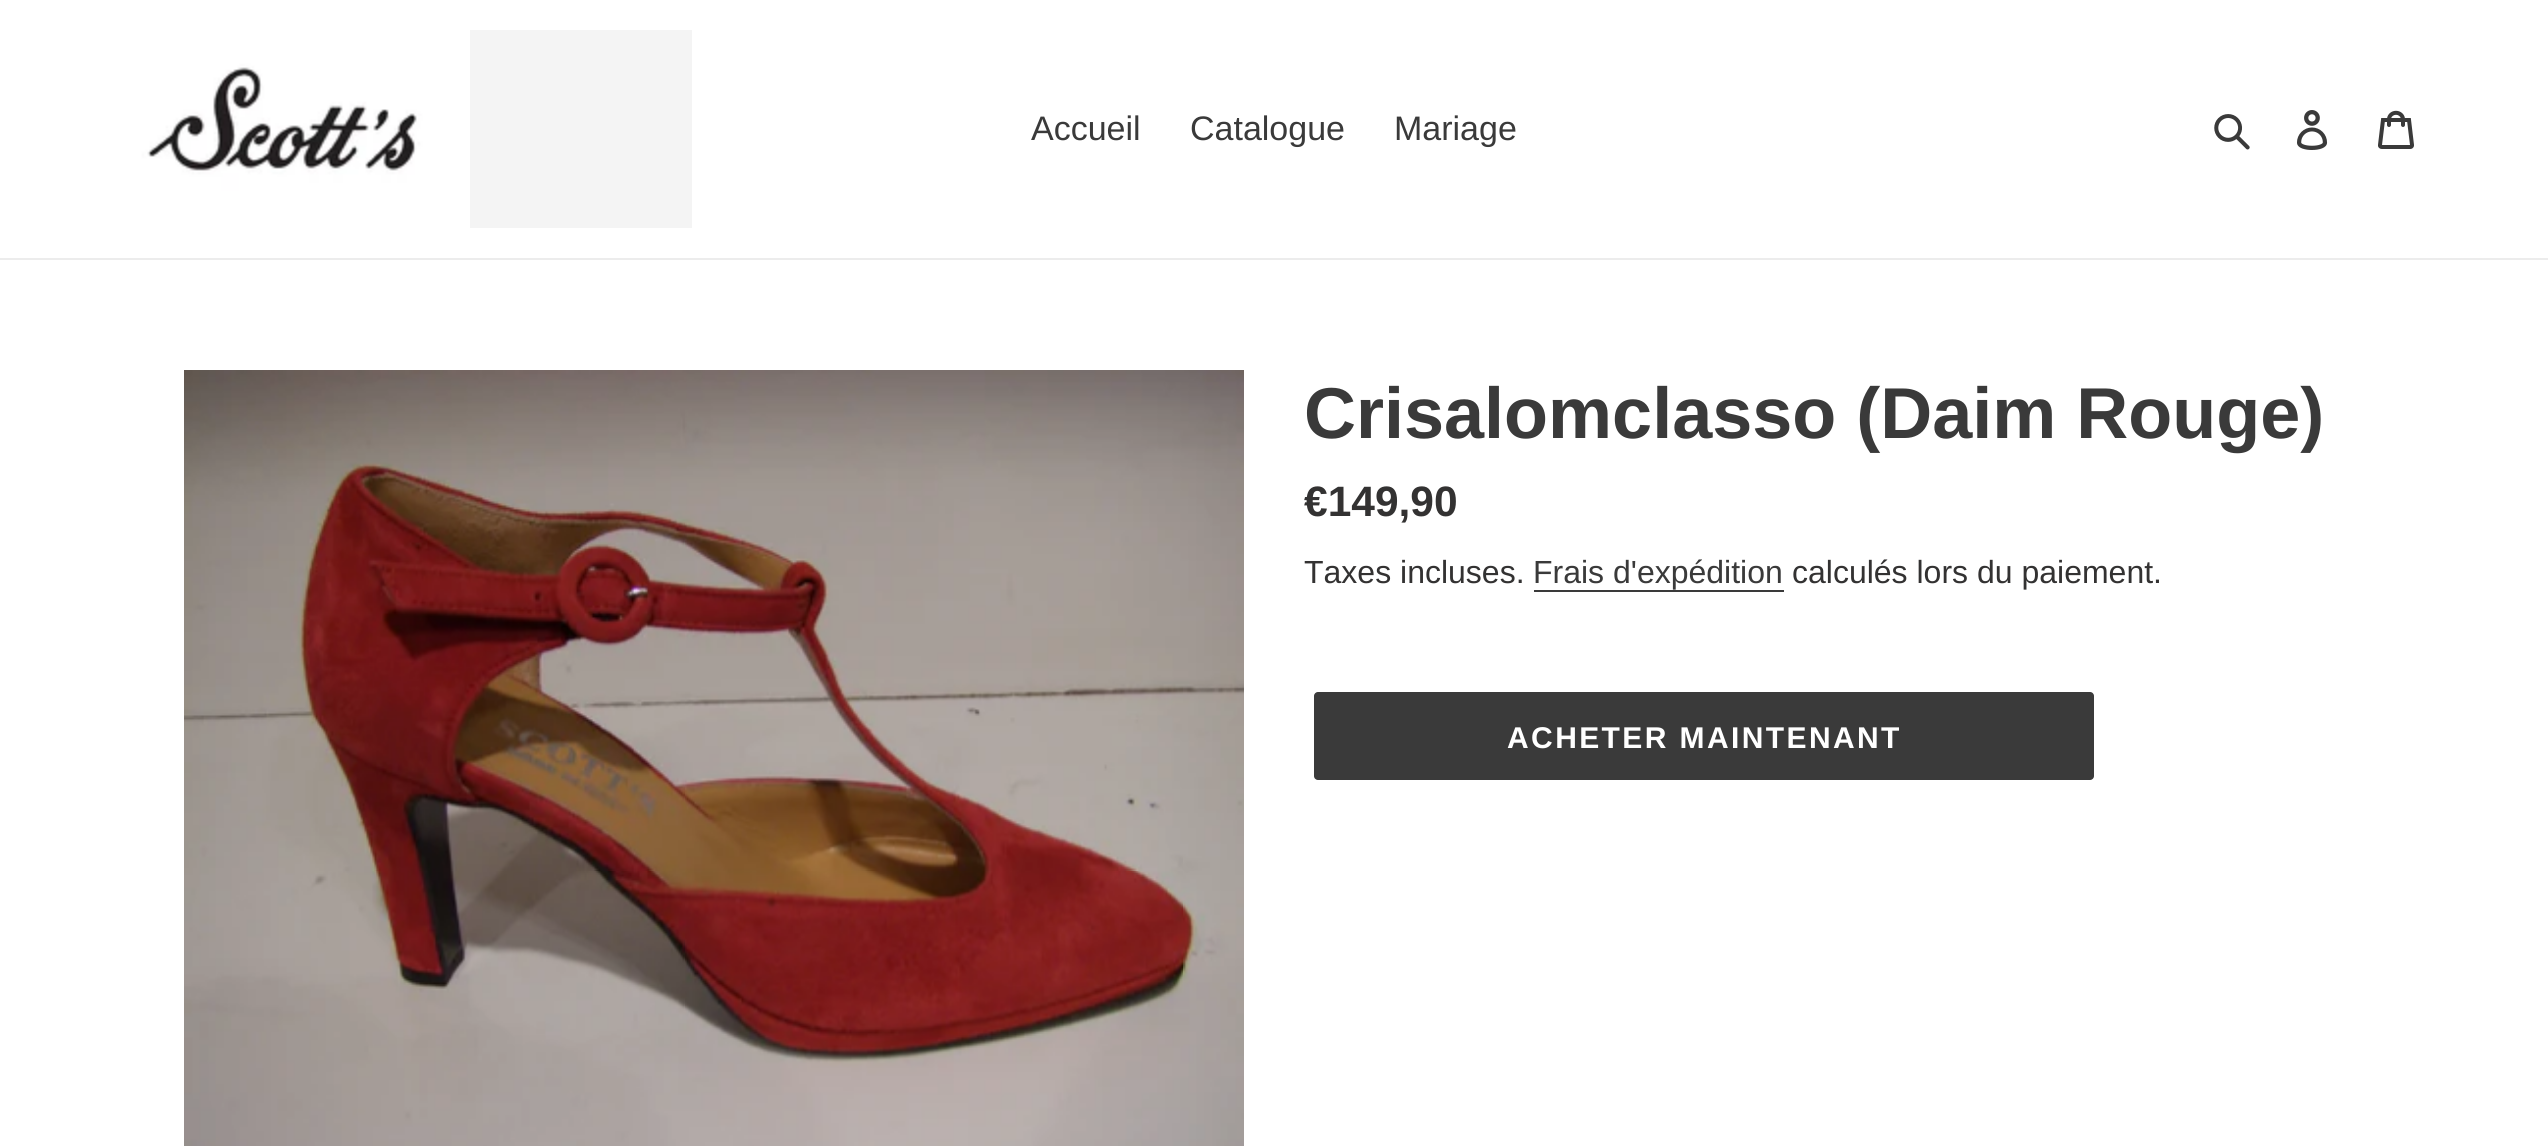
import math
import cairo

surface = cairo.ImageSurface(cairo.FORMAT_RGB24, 2548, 1146)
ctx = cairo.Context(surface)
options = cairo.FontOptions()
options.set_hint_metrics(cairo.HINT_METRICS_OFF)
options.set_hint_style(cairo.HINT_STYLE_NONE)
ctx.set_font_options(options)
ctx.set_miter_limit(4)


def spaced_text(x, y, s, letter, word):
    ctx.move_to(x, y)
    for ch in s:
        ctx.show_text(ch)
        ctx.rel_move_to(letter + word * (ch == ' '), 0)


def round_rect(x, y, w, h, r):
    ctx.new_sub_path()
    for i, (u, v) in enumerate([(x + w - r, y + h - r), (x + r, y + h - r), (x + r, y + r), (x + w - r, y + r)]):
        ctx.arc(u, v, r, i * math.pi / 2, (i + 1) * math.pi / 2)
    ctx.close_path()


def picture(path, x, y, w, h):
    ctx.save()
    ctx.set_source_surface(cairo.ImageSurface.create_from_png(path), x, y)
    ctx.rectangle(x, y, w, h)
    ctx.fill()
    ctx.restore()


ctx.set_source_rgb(1, 1, 1)
ctx.paint()
ctx.set_source_rgb(0.922, 0.922, 0.922)
ctx.rectangle(0, 258, 2548, 2)
ctx.fill()
ctx.set_source_rgb(0.957, 0.957, 0.957)
ctx.rectangle(470, 30, 222, 198)
ctx.fill()
picture("img1.png", 110, 30, 360, 198)
ctx.select_font_face("Liberation Sans")
ctx.set_font_size(34)
ctx.set_source_rgb(0.227, 0.227, 0.227)
ctx.move_to(1031, 140)
ctx.show_text("Accueil")
ctx.move_to(1190, 140)
ctx.show_text("Catalogue")
ctx.move_to(1394, 140)
ctx.show_text("Mariage")
picture("img2.png", 2214, 114, 36, 36)
picture("img3.png", 2297, 110, 31, 40)
picture("img4.png", 2378, 110, 36, 39)
picture("img5.png", 184, 370, 1060, 776)
ctx.select_font_face("Liberation Sans", cairo.FONT_SLANT_NORMAL, cairo.FONT_WEIGHT_BOLD)
ctx.set_font_size(72)
ctx.move_to(1304, 438)
ctx.show_text("Crisalomclasso (Daim Rouge)")
ctx.set_font_size(42.5)
ctx.set_source_rgb(0.2, 0.196, 0.196)
ctx.move_to(1304, 516)
ctx.show_text("€149,90")
ctx.select_font_face("Liberation Sans")
ctx.set_font_size(32)
ctx.move_to(1304, 583)
ctx.show_text("Taxes incluses.")
ctx.set_source_rgb(0.227, 0.227, 0.227)
ctx.move_to(1533, 583)
ctx.show_text("Frais d'expédition")
ctx.rectangle(1534, 590, 250, 2)
ctx.fill()
ctx.set_source_rgb(0.2, 0.196, 0.196)
ctx.move_to(1792, 583)
ctx.show_text("calculés lors du paiement.")
ctx.set_source_rgb(0.227, 0.227, 0.227)
round_rect(1314, 692, 780, 88, 4)
ctx.fill()
ctx.select_font_face("Liberation Sans", cairo.FONT_SLANT_NORMAL, cairo.FONT_WEIGHT_BOLD)
ctx.set_font_size(30)
ctx.set_source_rgb(1, 1, 1)
spaced_text(1507, 748, "ACHETER MAINTENANT", 2.4, 0)
surface.write_to_png("page.png")
